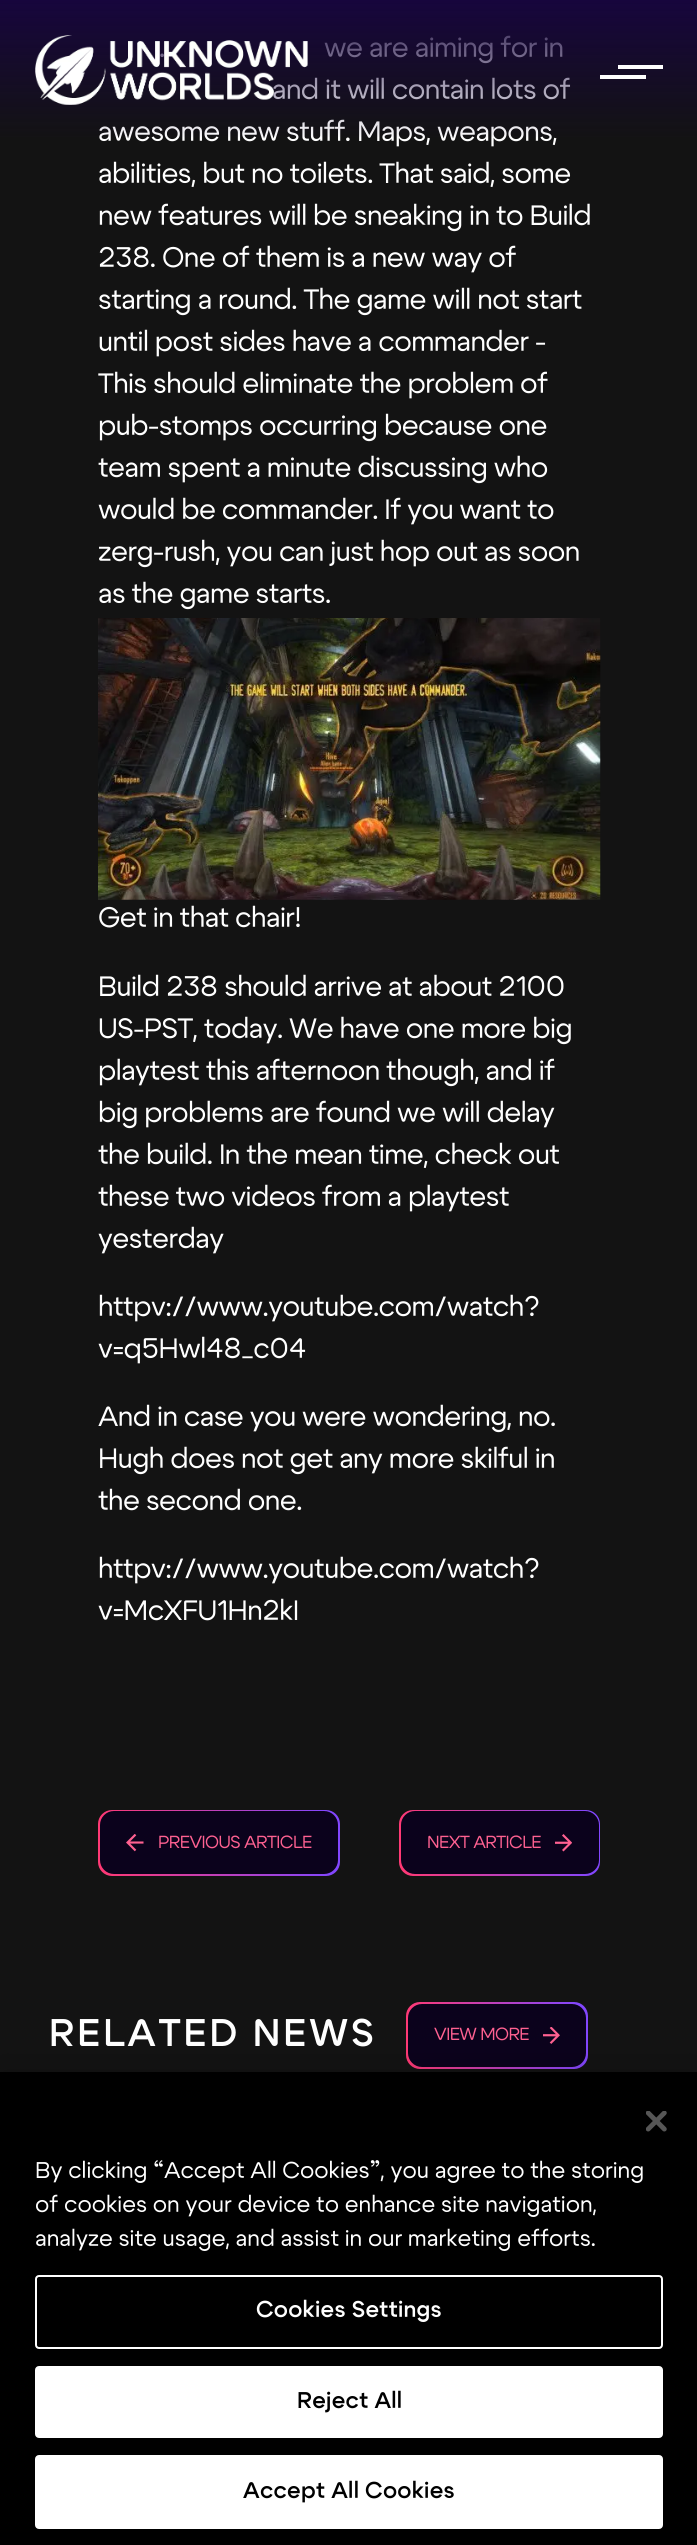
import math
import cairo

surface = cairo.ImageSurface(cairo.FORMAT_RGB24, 697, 2545)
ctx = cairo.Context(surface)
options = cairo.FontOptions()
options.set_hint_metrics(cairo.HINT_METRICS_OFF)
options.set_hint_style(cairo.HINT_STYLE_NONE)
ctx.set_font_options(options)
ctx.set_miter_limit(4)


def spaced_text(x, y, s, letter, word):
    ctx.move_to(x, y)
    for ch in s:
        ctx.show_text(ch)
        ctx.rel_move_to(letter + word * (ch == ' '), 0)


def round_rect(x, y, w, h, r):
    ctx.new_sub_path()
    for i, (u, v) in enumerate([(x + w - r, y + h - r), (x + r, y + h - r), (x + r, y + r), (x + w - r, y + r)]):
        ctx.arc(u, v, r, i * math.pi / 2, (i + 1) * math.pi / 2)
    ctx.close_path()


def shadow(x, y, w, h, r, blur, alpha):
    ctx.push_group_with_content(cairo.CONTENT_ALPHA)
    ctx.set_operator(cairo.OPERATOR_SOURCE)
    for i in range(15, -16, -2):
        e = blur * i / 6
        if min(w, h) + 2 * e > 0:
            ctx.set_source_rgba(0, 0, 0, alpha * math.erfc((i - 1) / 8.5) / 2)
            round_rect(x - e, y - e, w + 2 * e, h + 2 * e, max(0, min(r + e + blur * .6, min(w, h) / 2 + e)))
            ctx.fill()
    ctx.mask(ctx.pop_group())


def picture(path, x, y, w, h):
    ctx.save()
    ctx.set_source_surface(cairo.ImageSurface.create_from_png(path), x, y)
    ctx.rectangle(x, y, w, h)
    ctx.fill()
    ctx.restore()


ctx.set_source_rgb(0.078, 0.078, 0.078)
ctx.paint()
ctx.select_font_face("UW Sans")
ctx.set_font_size(28)
ctx.set_source_rgb(1, 1, 1)
spaced_text(159, 57, ".", -0.55, 0)
spaced_text(324, 57, "we are aiming for in", -0.55, 0)
spaced_text(272, 99, "and it will contain lots of", -0.55, 0)
spaced_text(98, 141, "awesome new stuff. Maps, weapons,", -0.55, 0)
gradient = cairo.LinearGradient(349, 0, 349, 140)
gradient.add_color_stop_rgba(0, 0.09, 0.02, 0.239, 1)
gradient.add_color_stop_rgba(1, 0.09, 0.02, 0.239, 0)
ctx.set_source(gradient)
ctx.rectangle(0, 0, 697, 137)
ctx.fill()
picture("img1.png", 35, 35, 273, 70)
ctx.set_source_rgb(1, 1, 1)
ctx.rectangle(618, 65, 45, 4)
ctx.fill()
ctx.rectangle(600, 75, 46, 4)
ctx.fill()
spaced_text(98, 183, "abilities, but no toilets. That said, some", -0.55, 0)
spaced_text(98, 225, "new features will be sneaking in to Build", -0.55, 0)
spaced_text(98, 267, "238. One of them is a new way of", -0.55, 0)
spaced_text(98, 309, "starting a round. The game will not start", -0.55, 0)
spaced_text(98, 351, "until post sides have a commander -", -0.55, 0)
spaced_text(98, 393, "This should eliminate the problem of", -0.55, 0)
spaced_text(98, 435, "pub-stomps occurring because one", -0.55, 0)
spaced_text(98, 477, "team spent a minute discussing who", -0.55, 0)
spaced_text(98, 519, "would be commander. If you want to", -0.55, 0)
spaced_text(98, 561, "zerg-rush, you can just hop out as soon", -0.55, 0)
spaced_text(98, 603, "as the game starts.", -0.55, 0)
picture("img2.png", 98, 618, 503, 282)
spaced_text(98, 927, "Get in that chair!", -0.55, 0)
spaced_text(98, 996, "Build 238 should arrive at about 2100", -0.55, 0)
spaced_text(98, 1038, "US-PST, today. We have one more big", -0.55, 0)
spaced_text(98, 1080, "playtest this afternoon though, and if", -0.55, 0)
spaced_text(98, 1122, "big problems are found we will delay", -0.55, 0)
spaced_text(98, 1164, "the build. In the mean time, check out", -0.55, 0)
spaced_text(98, 1206, "these two videos from a playtest", -0.55, 0)
spaced_text(98, 1248, "yesterday", -0.55, 0)
spaced_text(98, 1316, "httpv://www.youtube.com/watch?", -0.55, 0)
spaced_text(98, 1358, "v=q5Hwl48_c04", -0.55, 0)
spaced_text(98, 1426, "And in case you were wondering, no.", -0.55, 0)
spaced_text(98, 1468, "Hugh does not get any more skilful in", -0.55, 0)
spaced_text(98, 1510, "the second one.", -0.55, 0)
spaced_text(98, 1578, "httpv://www.youtube.com/watch?", -0.55, 0)
spaced_text(98, 1620, "v=McXFU1Hn2kI", -0.55, 0)
gradient = cairo.LinearGradient(96, 1852, 341, 1834)
gradient.add_color_stop_rgba(0.02, 1, 0.224, 0.459, 1)
gradient.add_color_stop_rgba(0.95, 0.514, 0.275, 0.996, 1)
ctx.set_source(gradient)
round_rect(98, 1810, 242, 66, 14)
ctx.fill()
ctx.set_source_rgb(0.043, 0.008, 0.11)
round_rect(100, 1811, 238, 63, 14)
ctx.fill()
picture("img3.png", 126, 1834, 18, 18)
ctx.set_font_size(17.5)
ctx.set_source_rgb(1, 0.38, 0.569)
spaced_text(158, 1848, "PREVIOUS ARTICLE", -0.55, 0)
gradient = cairo.LinearGradient(397, 1850, 602, 1835)
gradient.add_color_stop_rgba(0.02, 1, 0.224, 0.459, 1)
gradient.add_color_stop_rgba(0.95, 0.514, 0.275, 0.996, 1)
ctx.set_source(gradient)
round_rect(399, 1810, 201, 66, 14)
ctx.fill()
ctx.set_source_rgb(0.043, 0.008, 0.11)
round_rect(401, 1811, 198, 63, 14)
ctx.fill()
ctx.set_source_rgb(1, 0.38, 0.569)
spaced_text(427, 1848, "NEXT ARTICLE", -0.55, 0)
picture("img4.png", 555, 1834, 17, 18)
ctx.select_font_face("UW Sans SemiBold")
ctx.set_font_size(38.5)
ctx.set_source_rgb(1, 1, 1)
spaced_text(49, 2046, "RELATED NEWS", 3, 0)
gradient = cairo.LinearGradient(404, 2042, 590, 2028)
gradient.add_color_stop_rgba(0.02, 1, 0.224, 0.459, 1)
gradient.add_color_stop_rgba(0.95, 0.514, 0.275, 0.996, 1)
ctx.set_source(gradient)
round_rect(406, 2002, 182, 67, 14)
ctx.fill()
ctx.set_source_rgb(0.043, 0.008, 0.11)
round_rect(408, 2004, 178, 63, 14)
ctx.fill()
ctx.select_font_face("UW Sans")
ctx.set_font_size(17.5)
ctx.set_source_rgb(1, 0.38, 0.569)
spaced_text(434, 2040, "VIEW MORE", -0.55, 0)
picture("img5.png", 543, 2027, 17, 17)
ctx.set_source_rgb(0, 0, 0)
shadow(0, 2072, 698, 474, 0, 16, 0.2)
ctx.set_source_rgb(0, 0, 0)
ctx.rectangle(0, 2072, 697, 473)
ctx.fill()
picture("img6.png", 646, 2111, 21, 21)
ctx.set_font_size(22.75)
ctx.set_source_rgb(1, 1, 1)
ctx.move_to(35, 2178)
ctx.show_text("By clicking “Accept All Cookies”, you agree to the storing")
ctx.move_to(35, 2212)
ctx.show_text("of cookies on your device to enhance site navigation,")
ctx.move_to(35, 2246)
ctx.show_text("analyze site usage, and assist in our marketing efforts.")
round_rect(36, 2276, 626, 72, 3)
ctx.stroke()
ctx.select_font_face("UW Sans SemiBold")
spaced_text(256, 2317, "Cookies Settings", 0.25, 0)
round_rect(36, 2367, 626, 70, 3)
ctx.fill_preserve()
ctx.stroke()
ctx.set_source_rgb(0, 0, 0)
spaced_text(297, 2408, "Reject All", 0.25, 0)
ctx.set_source_rgb(1, 1, 1)
round_rect(36, 2456, 626, 72, 3)
ctx.fill_preserve()
ctx.stroke()
ctx.set_source_rgb(0, 0, 0)
spaced_text(243, 2498, "Accept All Cookies", 0.25, 0)
surface.write_to_png("page.png")
